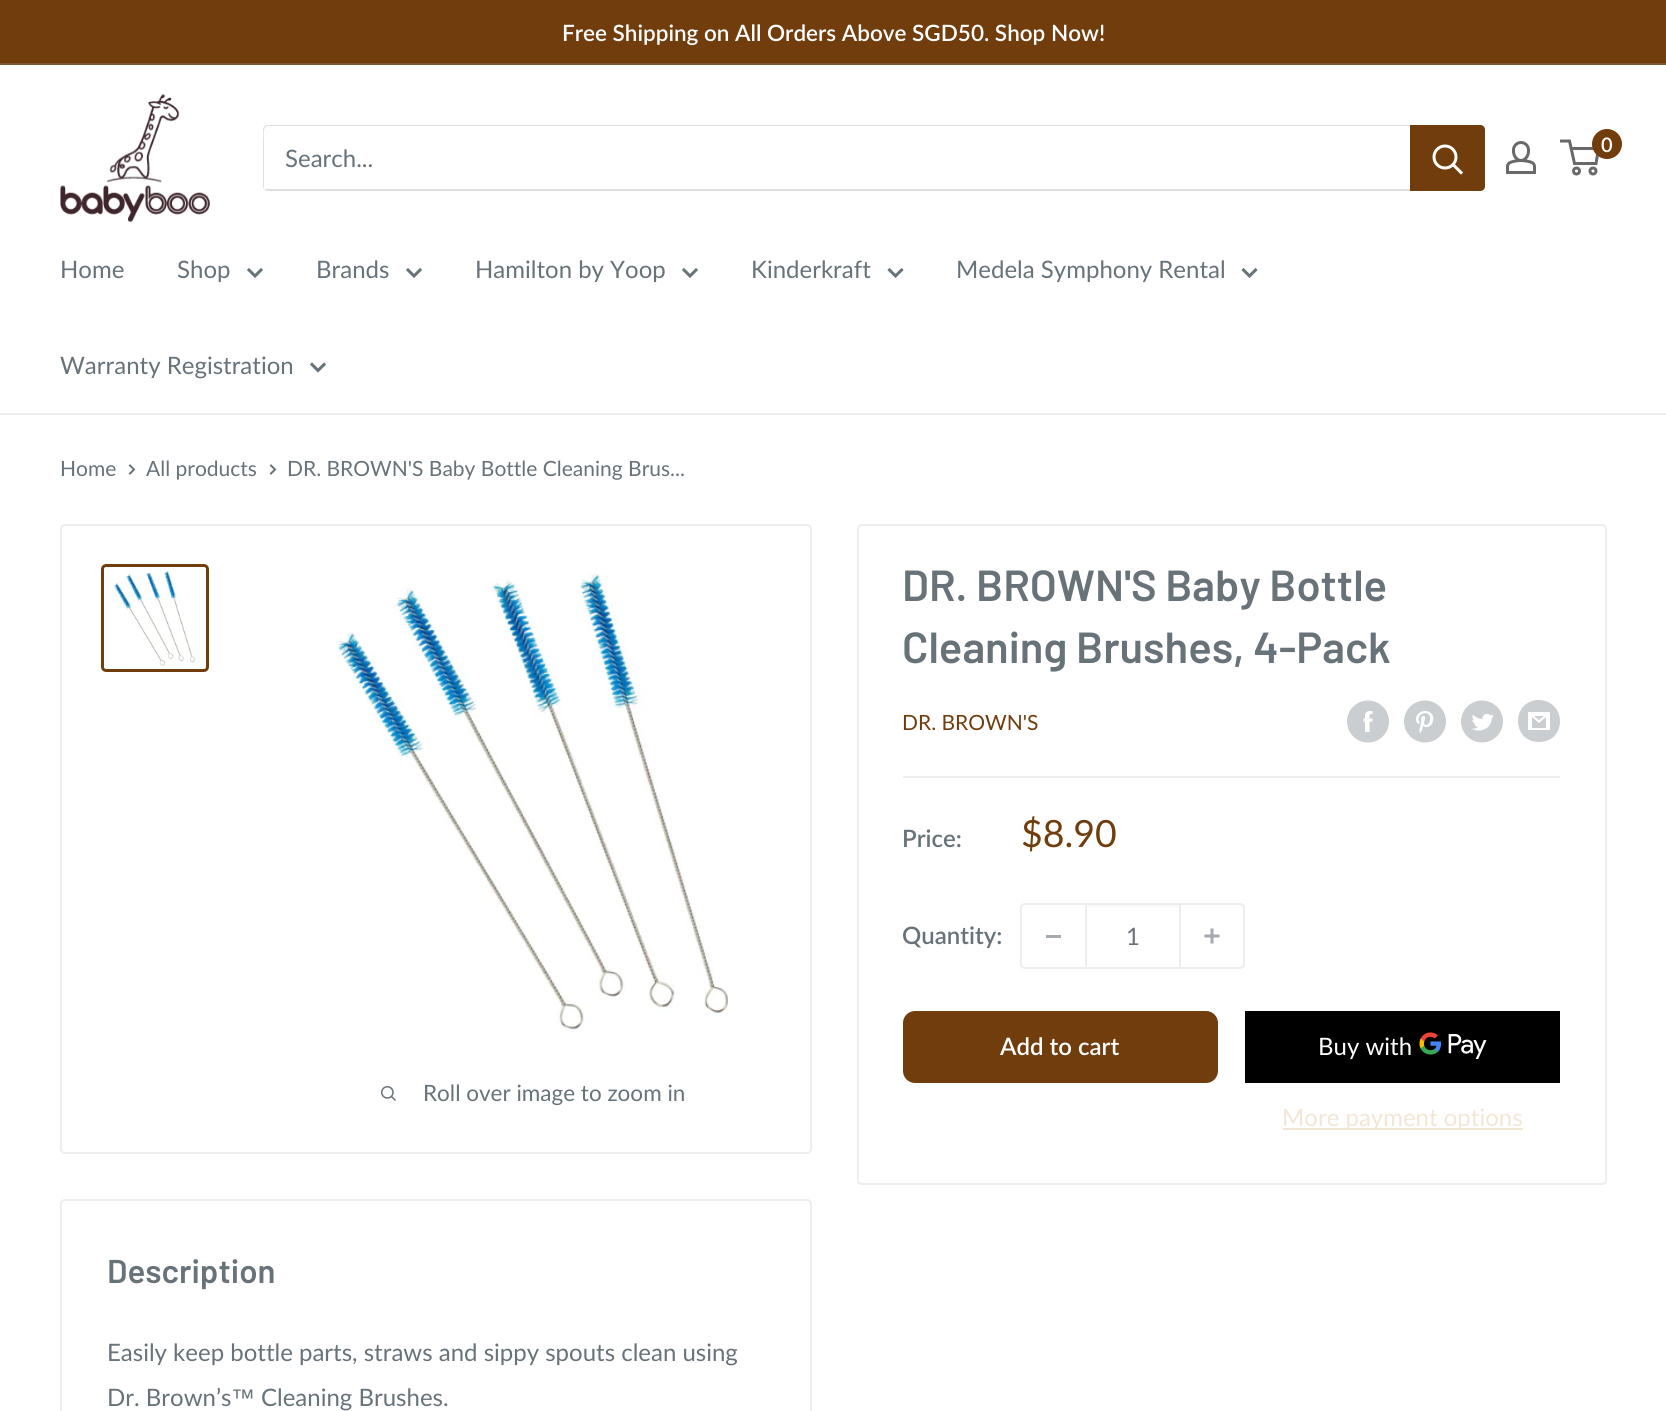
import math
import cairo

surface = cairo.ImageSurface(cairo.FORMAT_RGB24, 1666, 1411)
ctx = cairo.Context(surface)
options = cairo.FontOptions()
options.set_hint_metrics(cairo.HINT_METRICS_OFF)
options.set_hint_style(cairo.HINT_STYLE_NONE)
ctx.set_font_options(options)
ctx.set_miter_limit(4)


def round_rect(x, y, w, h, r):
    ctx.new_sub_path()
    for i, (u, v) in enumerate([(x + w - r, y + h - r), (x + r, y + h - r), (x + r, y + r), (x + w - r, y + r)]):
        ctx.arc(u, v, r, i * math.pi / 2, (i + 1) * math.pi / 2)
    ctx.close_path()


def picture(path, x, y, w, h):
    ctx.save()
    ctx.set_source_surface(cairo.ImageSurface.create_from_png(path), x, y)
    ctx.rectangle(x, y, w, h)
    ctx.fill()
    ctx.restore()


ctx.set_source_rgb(1, 1, 1)
ctx.paint()
ctx.set_source_rgb(0.443, 0.239, 0.051)
ctx.rectangle(0, 0, 1666, 63)
ctx.fill()
ctx.set_source_rgb(0.486, 0.341, 0.212)
ctx.rectangle(0, 63, 1666, 2)
ctx.fill()
ctx.select_font_face("Lato SemiBold")
ctx.set_font_size(22.5)
ctx.set_source_rgb(1, 1, 1)
ctx.move_to(562, 41)
ctx.show_text("Free Shipping on All Orders Above SGD50. Shop Now!")
picture("img1.png", 60, 94, 150, 128)
picture("img2.png", 1506, 141, 30, 33)
ctx.arc(1576.5, 171, 3, 0, 2 * math.pi)
ctx.set_source_rgb(0.416, 0.412, 0.412)
ctx.set_line_width(3)
ctx.stroke()
ctx.arc(1593, 171, 3, 0, 2 * math.pi)
ctx.stroke()
ctx.new_path()
ctx.move_to(1571, 148.5)
ctx.line_to(1598.5, 148.5)
ctx.line_to(1596, 163.5)
ctx.line_to(1574.5, 163.5)
ctx.line_to(1569.5, 141)
ctx.line_to(1560, 141)
ctx.stroke()
ctx.set_source_rgb(0.443, 0.239, 0.051)
ctx.arc(1607, 144, 15, 0, 2 * math.pi)
ctx.fill()
ctx.set_font_size(20)
ctx.set_source_rgb(1, 1, 1)
ctx.move_to(1601, 152)
ctx.show_text("0")
ctx.set_source_rgb(0.875, 0.875, 0.875)
ctx.new_path()
ctx.move_to(264, 189)
ctx.curve_to(265, 190, 266, 191, 268, 191)
ctx.line_to(1480, 191)
ctx.curve_to(1483, 191, 1485, 189, 1485, 186)
ctx.line_to(1485, 130)
ctx.curve_to(1485, 129, 1485, 128, 1484, 127)
ctx.line_to(1484, 184)
ctx.curve_to(1484, 187, 1481, 189, 1479, 189)
ctx.line_to(266, 189)
ctx.close_path()
ctx.fill()
ctx.new_path()
ctx.move_to(268, 126)
ctx.line_to(1483, 126)
ctx.curve_to(1482, 125, 1481, 125, 1480, 125)
ctx.line_to(268, 125)
ctx.curve_to(265, 125, 263, 127, 263, 130)
ctx.line_to(263, 186)
ctx.curve_to(263, 187, 263, 188, 264, 189)
ctx.line_to(264, 140)
ctx.curve_to(264, 138, 262, 126, 268, 126)
ctx.close_path()
ctx.fill()
ctx.select_font_face("Lato")
ctx.set_font_size(24)
ctx.set_source_rgb(0.404, 0.447, 0.475)
ctx.move_to(285, 167)
ctx.show_text("Search...")
ctx.set_source_rgb(0.443, 0.239, 0.051)
ctx.new_path()
ctx.move_to(1410, 125)
ctx.line_to(1480, 125)
ctx.curve_to(1483, 125, 1485, 127, 1485, 130)
ctx.line_to(1485, 186)
ctx.curve_to(1485, 189, 1483, 191, 1480, 191)
ctx.line_to(1410, 191)
ctx.close_path()
ctx.fill()
ctx.new_path()
ctx.move_to(1461, 172.5)
ctx.line_to(1453.5, 165)
ctx.set_source_rgb(1, 1, 1)
ctx.set_line_cap(cairo.LINE_CAP_SQUARE)
ctx.stroke()
ctx.arc(1445, 157, 11, 0, 2 * math.pi)
ctx.set_line_cap(cairo.LINE_CAP_BUTT)
ctx.stroke()
ctx.set_source_rgb(0.929, 0.929, 0.929)
ctx.rectangle(0, 413, 1666, 2)
ctx.fill()
ctx.set_source_rgb(0.404, 0.447, 0.475)
ctx.move_to(60, 278)
ctx.show_text("Home")
ctx.move_to(177, 278)
ctx.show_text("Shop")
ctx.new_path()
ctx.move_to(261, 270)
ctx.line_to(255, 276)
ctx.line_to(249, 270)
ctx.set_line_cap(cairo.LINE_CAP_SQUARE)
ctx.stroke()
ctx.move_to(316, 278)
ctx.show_text("Brands")
ctx.new_path()
ctx.move_to(420, 270)
ctx.line_to(414, 276)
ctx.line_to(408, 270)
ctx.stroke()
ctx.move_to(475, 278)
ctx.show_text("Hamilton by Yoop")
ctx.new_path()
ctx.move_to(696, 270)
ctx.line_to(690, 276)
ctx.line_to(684, 270)
ctx.stroke()
ctx.move_to(751, 278)
ctx.show_text("Kinderkraft")
ctx.new_path()
ctx.move_to(901.5, 270)
ctx.line_to(895.5, 276)
ctx.line_to(889.5, 270)
ctx.stroke()
ctx.move_to(956, 278)
ctx.show_text("Medela Symphony Rental")
ctx.new_path()
ctx.move_to(1255.5, 270)
ctx.line_to(1249.5, 276)
ctx.line_to(1243.5, 270)
ctx.stroke()
ctx.move_to(60, 374)
ctx.show_text("Warranty Registration")
ctx.new_path()
ctx.move_to(324, 364.5)
ctx.line_to(318, 370.5)
ctx.line_to(312, 364.5)
ctx.stroke()
ctx.set_font_size(21)
ctx.move_to(60, 476)
ctx.show_text("Home")
ctx.new_path()
ctx.move_to(130, 465.5)
ctx.line_to(134, 469.5)
ctx.line_to(130, 473.5)
ctx.set_line_width(2)
ctx.stroke()
ctx.move_to(146, 476)
ctx.show_text("All products")
ctx.new_path()
ctx.move_to(271, 465.5)
ctx.line_to(275, 469.5)
ctx.line_to(271, 473.5)
ctx.stroke()
ctx.move_to(287, 476)
ctx.show_text("DR. BROWN'S Baby Bottle Cleaning Brus...")
round_rect(61, 525, 750, 628, 4)
ctx.set_source_rgb(0.929, 0.929, 0.929)
ctx.set_line_cap(cairo.LINE_CAP_BUTT)
ctx.stroke()
round_rect(102.5, 565.5, 105, 105, 3.5)
ctx.set_source_rgb(0.443, 0.239, 0.051)
ctx.set_line_width(3)
ctx.stroke()
picture("img3.png", 112, 570, 83, 96)
picture("img4.png", 337, 573, 391, 459)
picture("img5.png", 381, 1086, 15, 15)
ctx.set_font_size(22.5)
ctx.set_source_rgb(0.404, 0.447, 0.475)
ctx.move_to(423, 1101)
ctx.show_text("Roll over image to zoom in")
round_rect(858, 525, 748, 659, 4)
ctx.set_source_rgb(0.929, 0.929, 0.929)
ctx.set_line_width(2)
ctx.stroke()
ctx.select_font_face("Barlow SemiBold")
ctx.set_font_size(43.5)
ctx.set_source_rgb(0.404, 0.447, 0.475)
ctx.move_to(902, 601)
ctx.show_text("DR. BROWN'S Baby Bottle")
ctx.move_to(902, 663)
ctx.show_text("Cleaning Brushes, 4-Pack")
ctx.select_font_face("Lato")
ctx.set_font_size(21)
ctx.set_source_rgb(0.443, 0.239, 0.051)
ctx.move_to(902, 730)
ctx.show_text("DR. BROWN'S")
picture("img6.png", 1347, 700, 42, 43)
picture("img7.png", 1404, 700, 42, 43)
picture("img8.png", 1461, 700, 42, 43)
ctx.set_source_rgb(0.792, 0.808, 0.816)
ctx.new_path()
ctx.move_to(1539, 742)
ctx.curve_to(1511, 742, 1511, 700, 1539, 700)
ctx.curve_to(1567, 701, 1567, 742, 1539, 742)
ctx.close_path()
ctx.move_to(1534, 716)
ctx.line_to(1544, 716)
ctx.line_to(1539, 720)
ctx.close_path()
ctx.move_to(1546, 717)
ctx.line_to(1546, 728)
ctx.line_to(1532, 728)
ctx.line_to(1532, 717)
ctx.line_to(1539, 723)
ctx.close_path()
ctx.move_to(1550, 712)
ctx.line_to(1528, 712)
ctx.line_to(1528, 730)
ctx.line_to(1550, 730)
ctx.close_path()
ctx.fill()
ctx.set_source_rgb(0.929, 0.929, 0.929)
ctx.rectangle(903, 776, 657, 2)
ctx.fill()
ctx.select_font_face("Lato SemiBold")
ctx.set_font_size(24)
ctx.set_source_rgb(0.404, 0.447, 0.475)
ctx.move_to(902, 847)
ctx.show_text("Price:")
ctx.select_font_face("Lato")
ctx.set_font_size(37.5)
ctx.set_source_rgb(0.443, 0.239, 0.051)
ctx.move_to(1021, 847)
ctx.show_text("$8.90")
ctx.select_font_face("Lato SemiBold")
ctx.set_font_size(24)
ctx.set_source_rgb(0.404, 0.447, 0.475)
ctx.move_to(902, 944)
ctx.show_text("Quantity:")
round_rect(1021, 904, 223, 64, 4)
ctx.set_source_rgb(0.929, 0.929, 0.929)
ctx.stroke()
ctx.set_source_rgb(0.643, 0.667, 0.686)
ctx.rectangle(1046, 935, 15, 3)
ctx.fill()
ctx.set_source_rgb(0.973, 0.973, 0.973)
ctx.rectangle(1086, 905, 93, 2)
ctx.fill()
ctx.set_source_rgb(0.929, 0.929, 0.929)
ctx.rectangle(1179, 905, 2, 63)
ctx.fill()
ctx.rectangle(1085, 905, 2, 63)
ctx.fill()
ctx.select_font_face("Lato")
ctx.set_source_rgb(0.404, 0.447, 0.475)
ctx.move_to(1126, 945)
ctx.show_text("1")
picture("img9.png", 1204, 928, 16, 16)
ctx.set_source_rgb(0.443, 0.239, 0.051)
round_rect(903, 1011, 315, 72, 12)
ctx.fill()
ctx.select_font_face("Lato SemiBold")
ctx.set_source_rgb(1, 1, 1)
ctx.move_to(1000, 1055)
ctx.show_text("Add to cart")
ctx.set_source_rgb(0, 0, 0)
ctx.rectangle(1245, 1011, 315, 72)
ctx.fill()
ctx.select_font_face("Lato")
ctx.set_source_rgb(1, 1, 1)
ctx.move_to(1318, 1055)
ctx.show_text("Buy with")
picture("img10.png", 1419, 1032, 68, 27)
ctx.set_source_rgb(0.953, 0.902, 0.835)
ctx.rectangle(1283, 1128, 240, 2)
ctx.fill()
ctx.move_to(1282, 1126)
ctx.show_text("More payment options")
round_rect(61, 1200, 750, 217, 4)
ctx.set_source_rgb(0.929, 0.929, 0.929)
ctx.stroke()
ctx.select_font_face("Barlow SemiBold")
ctx.set_font_size(33)
ctx.set_source_rgb(0.404, 0.447, 0.475)
ctx.move_to(107, 1283)
ctx.show_text("Description")
ctx.select_font_face("Lato")
ctx.set_font_size(24)
ctx.move_to(107, 1361)
ctx.show_text("Easily keep bottle parts, straws and sippy spouts clean using")
ctx.move_to(107, 1406)
ctx.show_text("Dr. Brown’s")
ctx.select_font_face("Liberation Sans")
ctx.move_to(231, 1406)
ctx.show_text("™")
ctx.select_font_face("Lato")
ctx.move_to(261, 1406)
ctx.show_text("Cleaning Brushes.")
surface.write_to_png("page.png")
